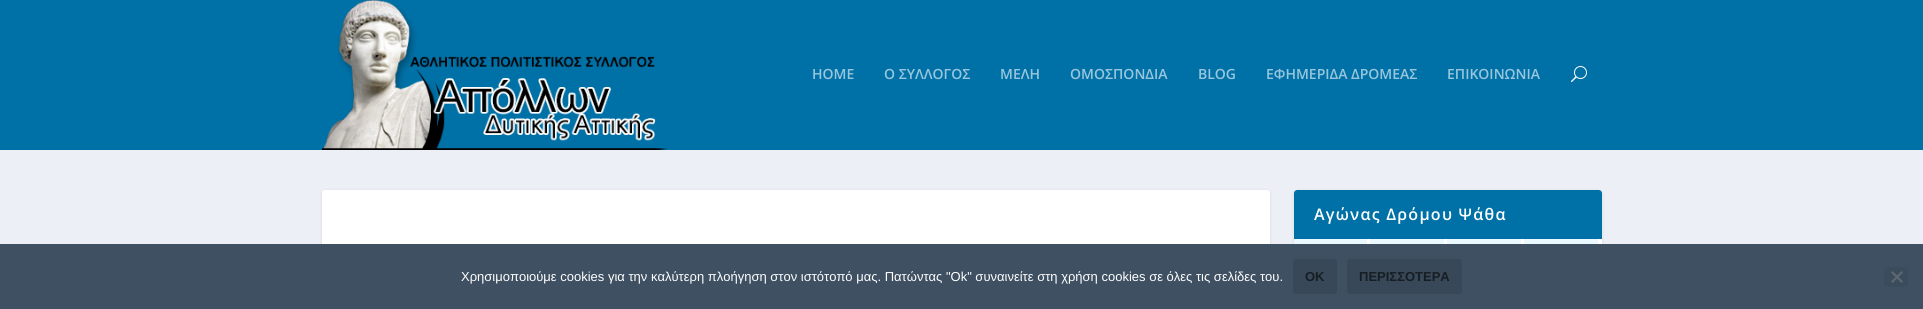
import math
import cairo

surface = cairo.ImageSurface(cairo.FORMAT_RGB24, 1923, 309)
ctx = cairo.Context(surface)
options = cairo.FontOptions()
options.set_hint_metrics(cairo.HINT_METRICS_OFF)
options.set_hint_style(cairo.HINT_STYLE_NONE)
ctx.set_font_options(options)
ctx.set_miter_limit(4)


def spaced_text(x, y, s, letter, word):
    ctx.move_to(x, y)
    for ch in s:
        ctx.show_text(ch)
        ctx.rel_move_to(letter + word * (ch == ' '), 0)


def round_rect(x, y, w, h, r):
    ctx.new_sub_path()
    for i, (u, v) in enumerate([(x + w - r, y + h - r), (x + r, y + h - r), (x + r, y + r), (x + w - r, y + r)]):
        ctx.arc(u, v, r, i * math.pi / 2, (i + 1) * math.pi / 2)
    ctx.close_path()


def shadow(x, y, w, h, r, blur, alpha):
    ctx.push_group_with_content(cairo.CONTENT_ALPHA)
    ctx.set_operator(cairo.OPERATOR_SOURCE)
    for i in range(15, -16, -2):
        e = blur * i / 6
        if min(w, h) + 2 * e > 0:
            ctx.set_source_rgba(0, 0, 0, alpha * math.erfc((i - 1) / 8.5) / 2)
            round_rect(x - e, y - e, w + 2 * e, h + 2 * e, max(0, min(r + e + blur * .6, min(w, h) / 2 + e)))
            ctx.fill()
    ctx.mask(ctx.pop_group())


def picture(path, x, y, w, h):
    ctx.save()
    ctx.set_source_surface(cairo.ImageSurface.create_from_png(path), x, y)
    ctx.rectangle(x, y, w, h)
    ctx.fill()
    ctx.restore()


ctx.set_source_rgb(0.925, 0.941, 0.961)
ctx.paint()
ctx.set_source_rgb(0, 0.443, 0.655)
ctx.rectangle(0, 0, 1923, 150)
ctx.fill()
picture("img1.png", 322, 0, 346, 150)
ctx.select_font_face("Open Sans SemiBold")
ctx.set_font_size(14)
ctx.set_source_rgb(0.6, 0.776, 0.863)
ctx.move_to(812, 79)
ctx.show_text("HOME")
ctx.move_to(884, 79)
ctx.show_text("Ο ΣΥΛΛΟΓΟΣ")
ctx.move_to(1000, 79)
ctx.show_text("ΜΕΛΗ")
ctx.move_to(1070, 79)
ctx.show_text("ΟΜΟΣΠΟΝΔΙΑ")
ctx.move_to(1198, 79)
ctx.show_text("BLOG")
ctx.move_to(1266, 79)
ctx.show_text("ΕΦΗΜΕΡΙΔΑ ΔΡΟΜΕΑΣ")
ctx.move_to(1447, 79)
ctx.show_text("ΕΠΙΚΟΙΝΩΝΙΑ")
picture("img2.png", 1571, 66, 16, 16)
ctx.set_source_rgb(0, 0, 0)
shadow(322, 191, 948, 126, 3, 1.5, 0.1)
ctx.set_source_rgb(1, 1, 1)
round_rect(322, 190, 948, 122, 3)
ctx.fill()
ctx.set_source_rgb(0, 0, 0)
shadow(1294, 191, 308, 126, 3, 1.5, 0.1)
ctx.set_source_rgb(1, 1, 1)
round_rect(1294, 190, 308, 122, 3)
ctx.fill()
ctx.set_source_rgb(0, 0.443, 0.655)
ctx.new_path()
ctx.move_to(1297, 190)
ctx.line_to(1599, 190)
ctx.curve_to(1600.5, 190, 1602, 191.5, 1602, 193)
ctx.line_to(1602, 239)
ctx.line_to(1294, 239)
ctx.line_to(1294, 193)
ctx.curve_to(1294, 191.5, 1295.5, 190, 1297, 190)
ctx.close_path()
ctx.fill()
ctx.set_font_size(16)
ctx.set_source_rgb(1, 1, 1)
spaced_text(1314, 220, "Αγώνας Δρόμου Ψάθα", 1.25, 0)
ctx.set_source_rgb(0.914, 0.976, 1)
ctx.rectangle(1294, 239, 73, 5)
ctx.fill()
ctx.rectangle(1370, 239, 74, 5)
ctx.fill()
ctx.rectangle(1447, 239, 74, 5)
ctx.fill()
ctx.rectangle(1524, 239, 74, 5)
ctx.fill()
ctx.set_source_rgb(0.243, 0.314, 0.384)
ctx.rectangle(0, 244, 1923, 65)
ctx.fill()
ctx.select_font_face("Liberation Sans")
ctx.set_font_size(13)
ctx.set_source_rgb(1, 1, 1)
ctx.move_to(461, 281)
ctx.show_text("Χρησιμοποιούμε cookies για την καλύτερη πλοήγηση στον ιστότοπό μας. Πατώντας \"Οk\" συναινείτε στη χρήση cookies σε όλες τις σελίδες του.")
ctx.set_source_rgb(0.22, 0.282, 0.345)
round_rect(1293, 259, 44, 35, 3)
ctx.fill()
ctx.select_font_face("Liberation Sans", cairo.FONT_SLANT_NORMAL, cairo.FONT_WEIGHT_BOLD)
ctx.set_source_rgb(0.086, 0.114, 0.137)
ctx.move_to(1305, 281)
ctx.show_text("OK")
ctx.set_source_rgb(0.22, 0.282, 0.345)
round_rect(1347, 259, 115, 35, 3)
ctx.fill()
ctx.set_source_rgb(0.086, 0.114, 0.137)
ctx.move_to(1359, 281)
ctx.show_text("ΠΕΡΙΣΣΟΤΕΡΑ")
ctx.set_source_rgb(0.231, 0.298, 0.365)
round_rect(1884, 267, 24, 20, 3)
ctx.fill()
ctx.set_source_rgb(0.373, 0.408, 0.443)
ctx.new_path()
ctx.move_to(1901.5, 271)
ctx.line_to(1903, 272.5)
ctx.line_to(1892.5, 283)
ctx.line_to(1891, 281.5)
ctx.close_path()
ctx.fill()
ctx.new_path()
ctx.move_to(1891, 272.5)
ctx.line_to(1892.5, 271)
ctx.line_to(1903, 281.5)
ctx.line_to(1901.5, 283)
ctx.close_path()
ctx.fill()
surface.write_to_png("page.png")
